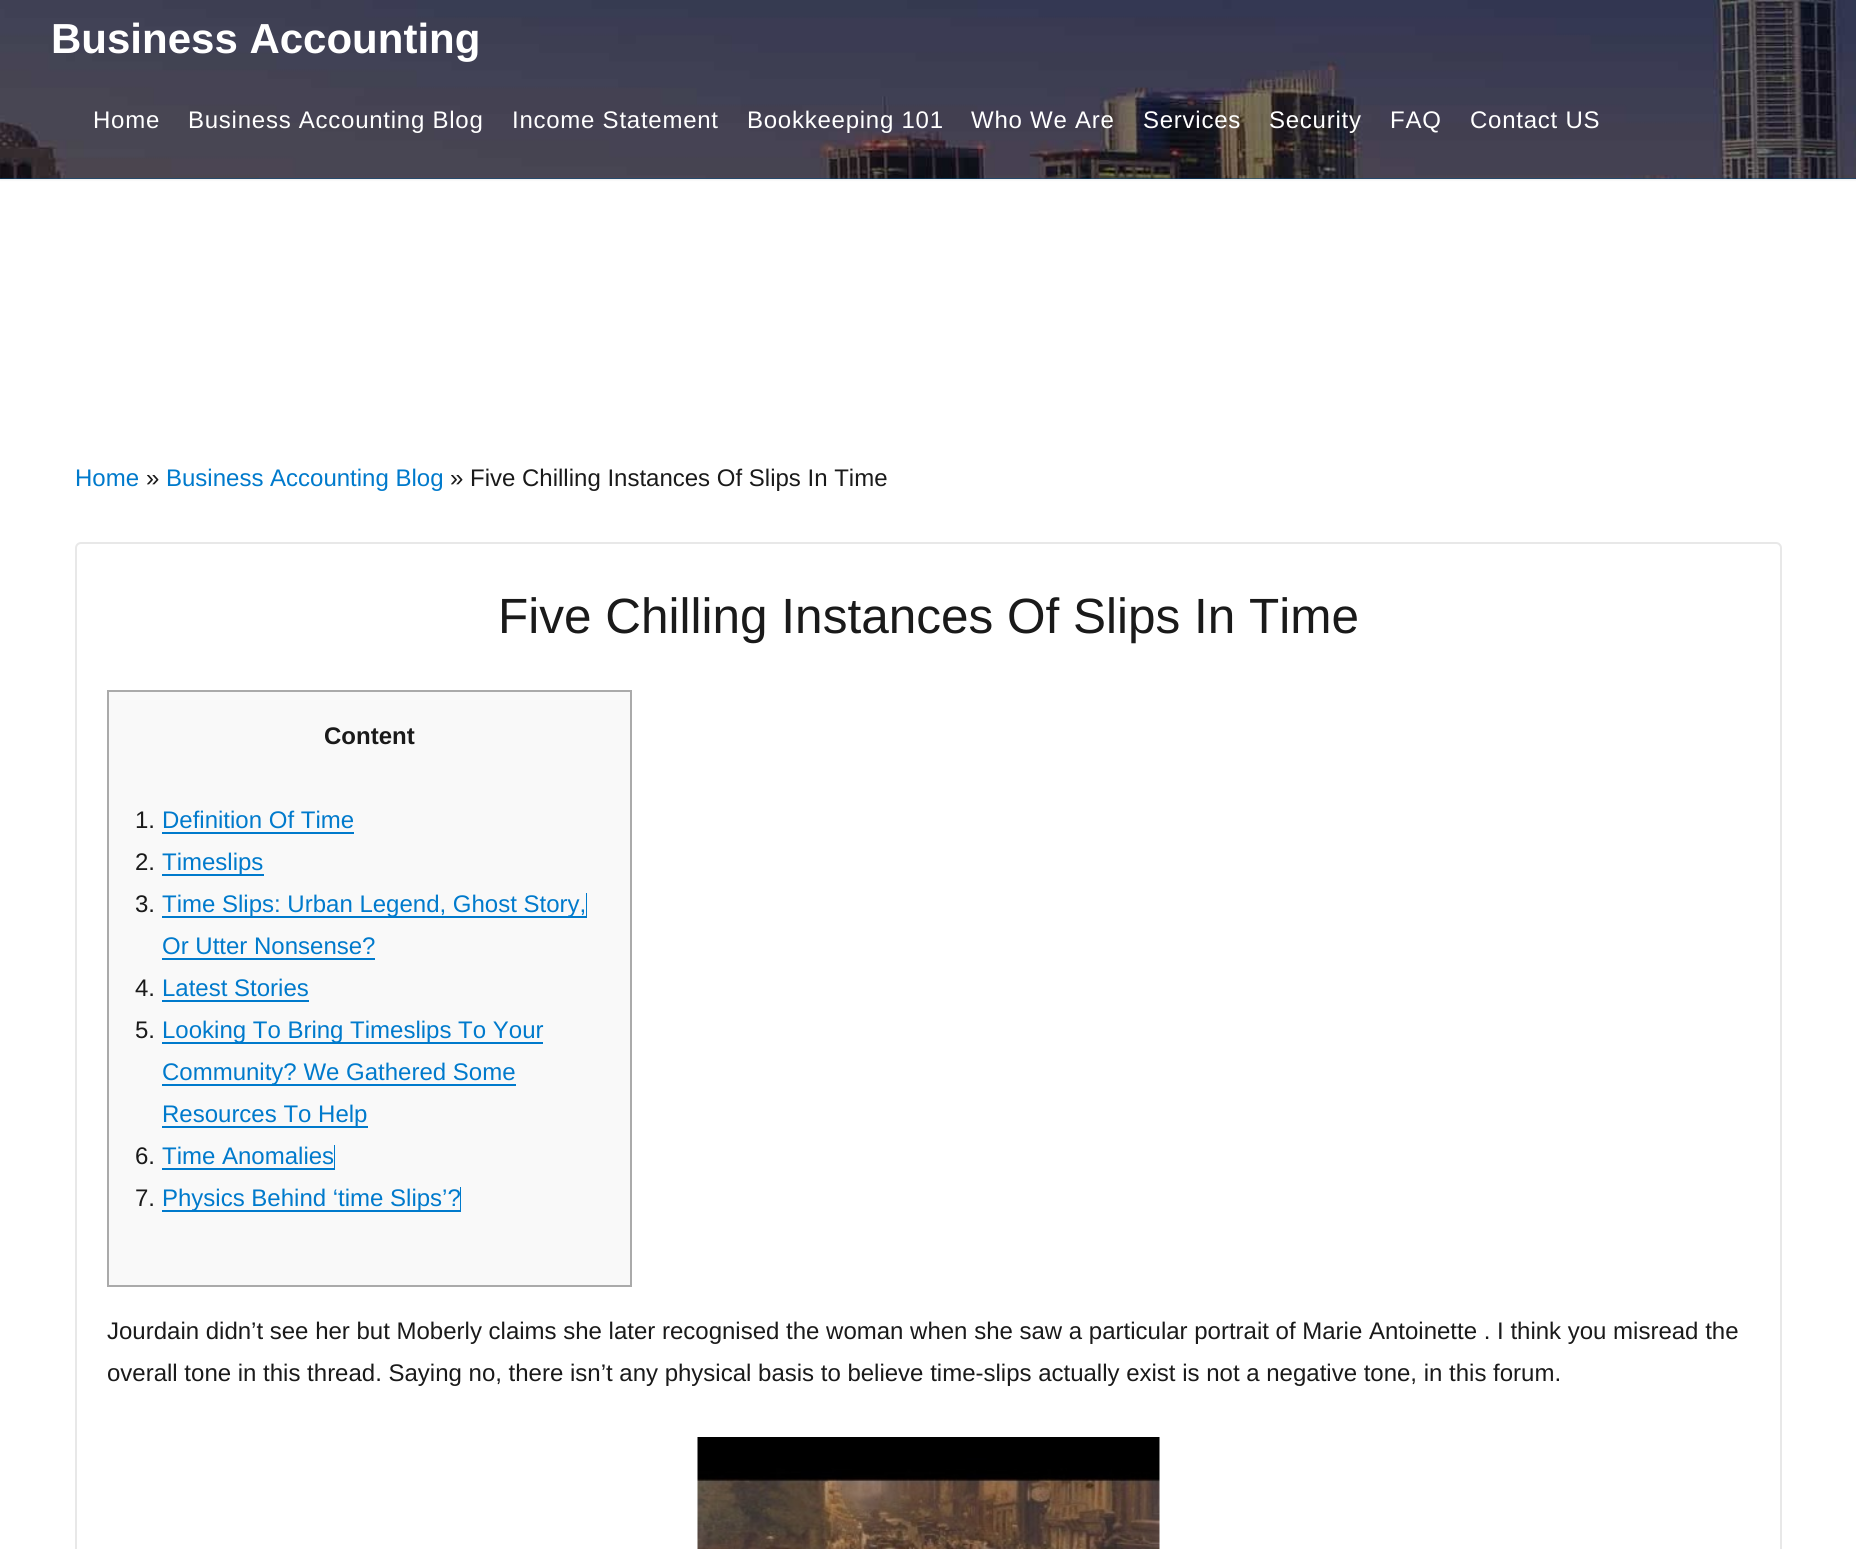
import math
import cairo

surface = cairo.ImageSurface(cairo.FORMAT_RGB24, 1856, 1549)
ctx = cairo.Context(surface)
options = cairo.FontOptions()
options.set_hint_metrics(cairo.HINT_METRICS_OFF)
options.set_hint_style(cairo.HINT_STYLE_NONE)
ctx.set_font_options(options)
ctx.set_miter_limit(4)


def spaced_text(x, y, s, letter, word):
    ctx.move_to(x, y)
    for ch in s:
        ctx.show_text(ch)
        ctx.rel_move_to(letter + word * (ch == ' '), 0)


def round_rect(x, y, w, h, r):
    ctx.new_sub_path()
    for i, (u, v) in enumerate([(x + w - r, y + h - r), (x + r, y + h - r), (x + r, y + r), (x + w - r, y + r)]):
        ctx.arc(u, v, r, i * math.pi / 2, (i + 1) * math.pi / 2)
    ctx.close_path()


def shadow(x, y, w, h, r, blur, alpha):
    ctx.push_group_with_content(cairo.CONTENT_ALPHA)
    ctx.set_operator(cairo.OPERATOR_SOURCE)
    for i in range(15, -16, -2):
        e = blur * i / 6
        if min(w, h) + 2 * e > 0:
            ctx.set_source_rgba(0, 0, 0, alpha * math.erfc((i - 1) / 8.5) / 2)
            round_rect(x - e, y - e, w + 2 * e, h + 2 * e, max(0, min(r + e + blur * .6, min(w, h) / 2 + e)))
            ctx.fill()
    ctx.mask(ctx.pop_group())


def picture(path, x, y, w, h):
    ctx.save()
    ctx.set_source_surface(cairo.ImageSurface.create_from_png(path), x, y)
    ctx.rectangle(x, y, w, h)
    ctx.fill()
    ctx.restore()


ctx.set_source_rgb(1, 1, 1)
ctx.paint()
ctx.set_source_rgb(0.933, 0.933, 0.933)
shadow(0, 2, 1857, 178, 0, 1, 1)
ctx.set_source_rgb(0.012, 0.318, 0.525)
ctx.rectangle(0, 178, 1856, 1)
ctx.fill()
picture("img1.png", 0, 0, 1856, 179)
ctx.select_font_face("Liberation Sans", cairo.FONT_SLANT_NORMAL, cairo.FONT_WEIGHT_BOLD)
ctx.set_font_size(42)
ctx.set_source_rgb(1, 1, 1)
ctx.move_to(51, 53)
ctx.show_text("Business Accounting")
ctx.select_font_face("Liberation Sans")
ctx.set_font_size(24)
spaced_text(93, 128, "Home", 0.75, 0)
spaced_text(188, 128, "Business Accounting Blog", 0.75, 0)
spaced_text(512, 128, "Income Statement", 0.75, 0)
spaced_text(747, 128, "Bookkeeping 101", 0.75, 0)
spaced_text(971, 128, "Who We Are", 0.75, 0)
spaced_text(1143, 128, "Services", 0.75, 0)
spaced_text(1269, 128, "Security", 0.75, 0)
spaced_text(1390, 128, "FAQ", 0.75, 0)
spaced_text(1470, 128, "Contact US", 0.75, 0)
ctx.set_source_rgb(0, 0.478, 0.8)
ctx.move_to(75, 486)
ctx.show_text("Home")
ctx.set_source_rgb(0.102, 0.102, 0.102)
ctx.move_to(146, 486)
ctx.show_text("»")
ctx.set_source_rgb(0, 0.478, 0.8)
ctx.move_to(166, 486)
ctx.show_text("Business Accounting Blog")
ctx.set_source_rgb(0.102, 0.102, 0.102)
ctx.move_to(450, 486)
ctx.show_text("» Five Chilling Instances Of Slips In Time")
round_rect(76, 543, 1705, 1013, 5)
ctx.set_source_rgb(0.91, 0.91, 0.91)
ctx.stroke()
ctx.set_font_size(49.5)
ctx.set_source_rgb(0.102, 0.102, 0.102)
ctx.move_to(498, 633)
ctx.show_text("Five Chilling Instances Of Slips In Time")
ctx.set_source_rgb(0.976, 0.976, 0.976)
ctx.rectangle(108, 691, 523, 595)
ctx.fill_preserve()
ctx.set_source_rgb(0.667, 0.667, 0.667)
ctx.stroke()
ctx.select_font_face("Liberation Sans", cairo.FONT_SLANT_NORMAL, cairo.FONT_WEIGHT_BOLD)
ctx.set_font_size(24)
ctx.set_source_rgb(0.102, 0.102, 0.102)
ctx.move_to(324, 744)
ctx.show_text("Content")
ctx.select_font_face("Liberation Sans")
ctx.move_to(135, 828)
ctx.show_text("1.")
ctx.set_source_rgb(0, 0.478, 0.8)
ctx.move_to(162, 828)
ctx.show_text("Definition Of Time")
ctx.rectangle(162, 832, 192, 2)
ctx.fill()
ctx.set_source_rgb(0.102, 0.102, 0.102)
ctx.move_to(135, 870)
ctx.show_text("2.")
ctx.set_source_rgb(0, 0.478, 0.8)
ctx.rectangle(162, 874, 102, 2)
ctx.fill()
ctx.move_to(162, 870)
ctx.show_text("Timeslips")
ctx.set_source_rgb(0.102, 0.102, 0.102)
ctx.move_to(135, 912)
ctx.show_text("3.")
ctx.set_source_rgb(0, 0.478, 0.8)
ctx.new_path()
ctx.move_to(162, 916)
ctx.line_to(162, 918)
ctx.line_to(587, 918)
ctx.line_to(587, 893)
ctx.line_to(586, 893)
ctx.line_to(586, 916)
ctx.close_path()
ctx.fill()
ctx.move_to(162, 912)
ctx.show_text("Time Slips: Urban Legend, Ghost Story,")
ctx.move_to(162, 954)
ctx.show_text("Or Utter Nonsense?")
ctx.rectangle(162, 958, 213, 2)
ctx.fill()
ctx.set_source_rgb(0.102, 0.102, 0.102)
ctx.move_to(135, 996)
ctx.show_text("4.")
ctx.set_source_rgb(0, 0.478, 0.8)
ctx.move_to(162, 996)
ctx.show_text("Latest Stories")
ctx.rectangle(162, 1000, 147, 2)
ctx.fill()
ctx.set_source_rgb(0.102, 0.102, 0.102)
ctx.move_to(135, 1038)
ctx.show_text("5.")
ctx.set_source_rgb(0, 0.478, 0.8)
ctx.rectangle(162, 1042, 381, 2)
ctx.fill()
ctx.move_to(162, 1038)
ctx.show_text("Looking To Bring Timeslips To Your")
ctx.rectangle(162, 1084, 354, 2)
ctx.fill()
ctx.move_to(162, 1080)
ctx.show_text("Community? We Gathered Some")
ctx.new_path()
ctx.move_to(162, 1126)
ctx.line_to(162, 1128)
ctx.line_to(368, 1128)
ctx.line_to(368, 1103)
ctx.line_to(368, 1126)
ctx.close_path()
ctx.fill()
ctx.move_to(162, 1122)
ctx.show_text("Resources To Help")
ctx.set_source_rgb(0.102, 0.102, 0.102)
ctx.move_to(135, 1164)
ctx.show_text("6.")
ctx.set_source_rgb(0, 0.478, 0.8)
ctx.new_path()
ctx.move_to(162, 1168)
ctx.line_to(162, 1170)
ctx.line_to(335, 1170)
ctx.line_to(335, 1145)
ctx.line_to(334, 1145)
ctx.line_to(334, 1168)
ctx.close_path()
ctx.fill()
ctx.move_to(162, 1164)
ctx.show_text("Time Anomalies")
ctx.set_source_rgb(0.102, 0.102, 0.102)
ctx.move_to(135, 1206)
ctx.show_text("7.")
ctx.set_source_rgb(0, 0.478, 0.8)
ctx.new_path()
ctx.move_to(162, 1210)
ctx.line_to(162, 1212)
ctx.line_to(461, 1212)
ctx.line_to(461, 1187)
ctx.line_to(460, 1187)
ctx.line_to(460, 1210)
ctx.close_path()
ctx.fill()
ctx.move_to(162, 1206)
ctx.show_text("Physics Behind ‘time Slips’?")
ctx.set_source_rgb(0.102, 0.102, 0.102)
ctx.move_to(107, 1339)
ctx.show_text("Jourdain didn’t see her but Moberly claims she later recognised the woman when she saw a particular portrait of Marie Antoinette . I think you misread the")
ctx.move_to(107, 1381)
ctx.show_text("overall tone in this thread. Saying no, there isn’t any physical basis to believe time-slips actually exist is not a negative tone, in this forum.")
picture("img2.png", 697, 1437, 463, 112)
surface.write_to_png("page.png")
